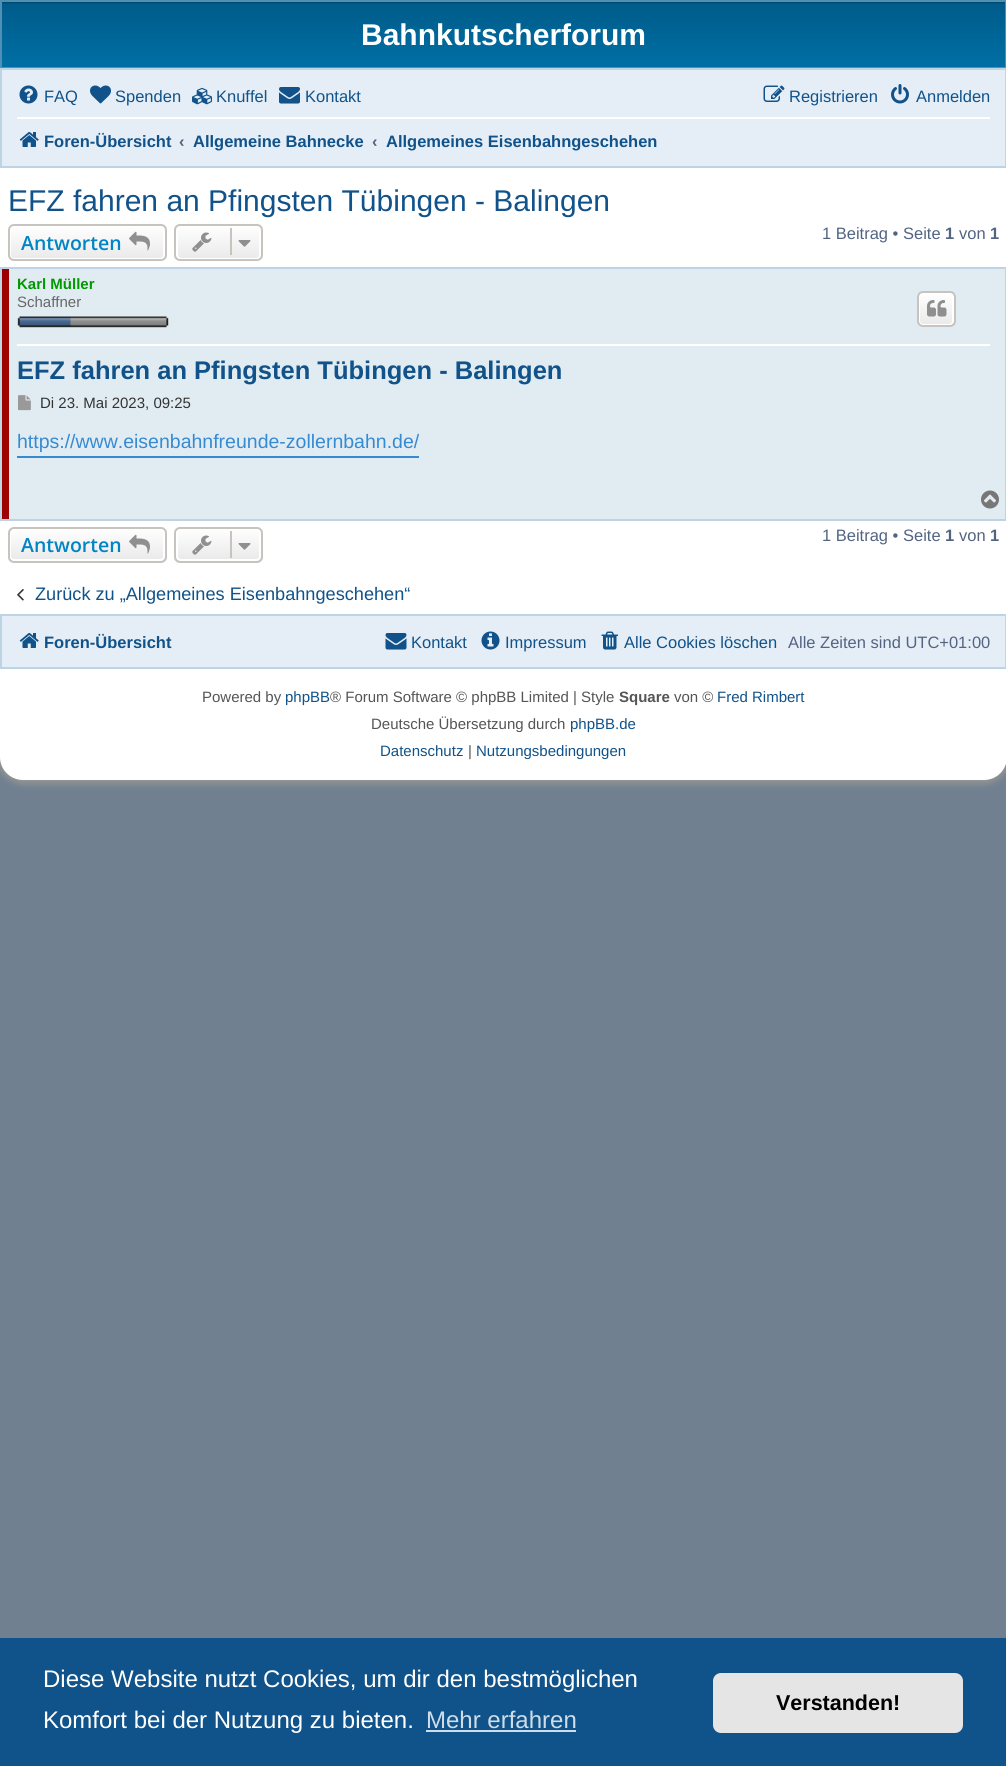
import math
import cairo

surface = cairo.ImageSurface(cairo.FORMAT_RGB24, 1006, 1766)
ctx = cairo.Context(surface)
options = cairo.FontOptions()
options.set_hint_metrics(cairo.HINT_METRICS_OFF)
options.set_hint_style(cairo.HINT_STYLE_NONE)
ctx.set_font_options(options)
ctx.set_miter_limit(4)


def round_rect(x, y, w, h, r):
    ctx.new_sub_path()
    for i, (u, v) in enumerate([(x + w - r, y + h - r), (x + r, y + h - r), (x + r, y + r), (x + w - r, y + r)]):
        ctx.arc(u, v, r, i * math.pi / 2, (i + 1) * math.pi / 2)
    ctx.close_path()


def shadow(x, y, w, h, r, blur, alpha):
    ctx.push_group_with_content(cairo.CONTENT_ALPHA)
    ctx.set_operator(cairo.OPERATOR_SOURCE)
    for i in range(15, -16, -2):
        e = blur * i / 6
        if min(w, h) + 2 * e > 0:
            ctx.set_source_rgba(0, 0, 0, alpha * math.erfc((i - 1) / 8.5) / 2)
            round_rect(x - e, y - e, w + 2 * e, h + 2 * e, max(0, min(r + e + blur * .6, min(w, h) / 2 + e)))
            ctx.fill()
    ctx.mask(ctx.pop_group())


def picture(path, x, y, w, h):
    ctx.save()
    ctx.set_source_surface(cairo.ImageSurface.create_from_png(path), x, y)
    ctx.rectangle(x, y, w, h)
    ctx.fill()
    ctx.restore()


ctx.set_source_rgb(0.439, 0.502, 0.565)
ctx.paint()
ctx.set_source_rgb(0.616, 0.604, 0.576)
shadow(-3, -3, 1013, 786, 26, 4, 1)
ctx.set_source_rgb(1, 1, 1)
round_rect(0, 0, 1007, 780, 23)
ctx.fill()
gradient = cairo.LinearGradient(503, 1.5, 503, 139)
gradient.add_color_stop_rgba(0, 0, 0.247, 0.369, 1)
gradient.add_color_stop_rgba(0.02, 0, 0.361, 0.541, 1)
gradient.add_color_stop_rgba(1, 0, 0.518, 0.769, 1)
ctx.set_source(gradient)
ctx.rectangle(2, 2, 1003, 65)
ctx.fill()
ctx.rectangle(1, 1, 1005, 67)
ctx.set_source_rgb(0.31, 0.569, 0.714)
ctx.stroke()
ctx.select_font_face("Liberation Sans", cairo.FONT_SLANT_NORMAL, cairo.FONT_WEIGHT_BOLD)
ctx.set_font_size(30)
ctx.set_source_rgb(1, 1, 1)
ctx.move_to(361, 45)
ctx.show_text("Bahnkutscherforum")
ctx.set_source_rgb(0.898, 0.933, 0.961)
ctx.rectangle(1, 69, 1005, 98)
ctx.fill_preserve()
ctx.set_source_rgb(0.737, 0.831, 0.89)
ctx.stroke()
picture("img1.png", 19, 85, 19, 19)
ctx.select_font_face("Liberation Sans")
ctx.set_font_size(16.5)
ctx.set_source_rgb(0.063, 0.322, 0.537)
ctx.move_to(44, 102)
ctx.show_text("FAQ")
picture("img2.png", 90, 85, 21, 19)
ctx.move_to(115, 102)
ctx.show_text("Spenden")
picture("img3.png", 192, 87, 21, 18)
ctx.move_to(216, 102)
ctx.show_text("Knuffel")
picture("img4.png", 279, 87, 21, 17)
ctx.move_to(305, 102)
ctx.show_text("Kontakt")
picture("img5.png", 763, 85, 22, 17)
ctx.move_to(789, 102)
ctx.show_text("Registrieren")
picture("img6.png", 891, 84, 18, 20)
ctx.move_to(916, 102)
ctx.show_text("Anmelden")
ctx.set_source_rgb(1, 1, 1)
ctx.rectangle(17, 117, 973, 2)
ctx.fill()
picture("img7.png", 19, 132, 20, 15)
ctx.select_font_face("Liberation Sans", cairo.FONT_SLANT_NORMAL, cairo.FONT_WEIGHT_BOLD)
ctx.set_source_rgb(0.063, 0.322, 0.537)
ctx.move_to(44, 147)
ctx.show_text("Foren-Übersicht")
ctx.set_source_rgb(0.325, 0.392, 0.51)
ctx.move_to(179, 147)
ctx.show_text("‹")
ctx.set_source_rgb(0.063, 0.322, 0.537)
ctx.move_to(193, 147)
ctx.show_text("Allgemeine Bahnecke")
ctx.set_source_rgb(0.325, 0.392, 0.51)
ctx.move_to(372, 147)
ctx.show_text("‹")
ctx.set_source_rgb(0.063, 0.322, 0.537)
ctx.move_to(386, 147)
ctx.show_text("Allgemeines Eisenbahngeschehen")
ctx.select_font_face("Liberation Sans")
ctx.set_font_size(30)
ctx.move_to(8, 211)
ctx.show_text("EFZ fahren an Pfingsten Tübingen - Balingen")
ctx.save()
round_rect(8, 224, 159, 37, 6)
ctx.clip()
gradient = cairo.LinearGradient(87, 225, 87, 260)
gradient.add_color_stop_rgba(0, 1, 1, 1, 1)
gradient.add_color_stop_rgba(1, 0.914, 0.914, 0.914, 1)
ctx.set_source(gradient)
ctx.rectangle(8, 225, 159, 35)
ctx.fill()
ctx.restore()
round_rect(10, 226, 154, 33, 4)
ctx.set_source_rgb(1, 1, 1)
ctx.stroke()
round_rect(9, 225, 157, 35, 5)
ctx.set_source_rgb(0.78, 0.765, 0.749)
ctx.stroke()
ctx.select_font_face("Open Sans SemiBold")
ctx.set_font_size(19.5)
ctx.set_source_rgb(0, 0.518, 0.769)
ctx.move_to(21, 250)
ctx.show_text("Antworten")
picture("img8.png", 129, 231, 21, 20)
ctx.save()
round_rect(174, 224, 89, 37, 6)
ctx.clip()
gradient = cairo.LinearGradient(218, 225, 218, 260)
gradient.add_color_stop_rgba(0, 1, 1, 1, 1)
gradient.add_color_stop_rgba(1, 0.914, 0.914, 0.914, 1)
ctx.set_source(gradient)
ctx.rectangle(174, 225, 89, 35)
ctx.fill()
ctx.restore()
round_rect(177, 226, 83, 33, 4)
ctx.set_source_rgb(1, 1, 1)
ctx.stroke()
round_rect(175, 225, 87, 35, 5)
ctx.set_source_rgb(0.78, 0.765, 0.749)
ctx.stroke()
picture("img9.png", 192, 232, 20, 20)
ctx.rectangle(230, 228, 2, 27)
ctx.fill()
picture("img10.png", 238, 240, 13, 7)
ctx.select_font_face("Liberation Sans")
ctx.set_font_size(16.5)
ctx.set_source_rgb(0.325, 0.392, 0.51)
ctx.move_to(822, 239)
ctx.show_text("1 Beitrag • Seite")
ctx.select_font_face("Liberation Sans", cairo.FONT_SLANT_NORMAL, cairo.FONT_WEIGHT_BOLD)
ctx.move_to(945, 239)
ctx.show_text("1")
ctx.select_font_face("Liberation Sans")
ctx.move_to(959, 239)
ctx.show_text("von")
ctx.select_font_face("Liberation Sans", cairo.FONT_SLANT_NORMAL, cairo.FONT_WEIGHT_BOLD)
ctx.move_to(990, 239)
ctx.show_text("1")
ctx.set_source_rgb(0.882, 0.922, 0.949)
ctx.rectangle(9, 269, 996, 250)
ctx.fill()
ctx.set_source_rgb(0.612, 0, 0.012)
ctx.rectangle(2, 267, 7, 254)
ctx.fill()
ctx.rectangle(1, 268, 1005, 252)
ctx.set_source_rgb(0.737, 0.831, 0.89)
ctx.stroke()
ctx.set_source_rgb(1, 1, 1)
ctx.rectangle(17, 344, 973, 2)
ctx.fill()
ctx.set_font_size(15)
ctx.set_source_rgb(0, 0.6, 0)
ctx.move_to(17, 289)
ctx.show_text("Karl Müller")
ctx.select_font_face("Liberation Sans")
ctx.set_source_rgb(0.4, 0.4, 0.4)
ctx.move_to(17, 307)
ctx.show_text("Schaffner")
picture("img11.png", 17, 316, 152, 12)
ctx.save()
round_rect(917, 291, 39, 36, 6)
ctx.clip()
gradient = cairo.LinearGradient(936, 293, 936, 326)
gradient.add_color_stop_rgba(0, 1, 1, 1, 1)
gradient.add_color_stop_rgba(1, 0.914, 0.914, 0.914, 1)
ctx.set_source(gradient)
ctx.rectangle(917, 293, 39, 33)
ctx.fill()
ctx.restore()
round_rect(919, 294, 34, 31, 4)
ctx.set_source_rgb(1, 1, 1)
ctx.stroke()
round_rect(918, 292, 37, 34, 5)
ctx.set_source_rgb(0.78, 0.765, 0.749)
ctx.stroke()
picture("img12.png", 927, 300, 20, 17)
ctx.select_font_face("Liberation Sans", cairo.FONT_SLANT_NORMAL, cairo.FONT_WEIGHT_BOLD)
ctx.set_font_size(25.5)
ctx.set_source_rgb(0.063, 0.322, 0.537)
ctx.move_to(17, 379)
ctx.show_text("EFZ fahren an Pfingsten Tübingen - Balingen")
picture("img13.png", 18, 395, 13, 16)
ctx.select_font_face("Liberation Sans")
ctx.set_font_size(15)
ctx.set_source_rgb(0.2, 0.2, 0.2)
ctx.move_to(40, 408)
ctx.show_text("Di 23. Mai 2023, 09:25")
ctx.set_source_rgb(0.212, 0.541, 0.824)
ctx.rectangle(17, 456, 402, 2)
ctx.fill()
ctx.set_font_size(19.5)
ctx.move_to(17, 448)
ctx.show_text("https://www.eisenbahnfreunde-zollernbahn.de/")
picture("img14.png", 981, 490, 18, 19)
ctx.save()
round_rect(8, 527, 159, 36, 6)
ctx.clip()
gradient = cairo.LinearGradient(87, 528, 87, 561)
gradient.add_color_stop_rgba(0, 1, 1, 1, 1)
gradient.add_color_stop_rgba(1, 0.914, 0.914, 0.914, 1)
ctx.set_source(gradient)
ctx.rectangle(8, 528, 159, 33)
ctx.fill()
ctx.restore()
round_rect(10, 529, 154, 31, 4)
ctx.set_source_rgb(1, 1, 1)
ctx.stroke()
round_rect(9, 528, 157, 34, 5)
ctx.set_source_rgb(0.78, 0.765, 0.749)
ctx.stroke()
ctx.select_font_face("Open Sans SemiBold")
ctx.set_source_rgb(0, 0.518, 0.769)
ctx.move_to(21, 552)
ctx.show_text("Antworten")
picture("img15.png", 129, 534, 21, 20)
ctx.save()
round_rect(174, 527, 89, 36, 6)
ctx.clip()
gradient = cairo.LinearGradient(218, 528, 218, 561)
gradient.add_color_stop_rgba(0, 1, 1, 1, 1)
gradient.add_color_stop_rgba(1, 0.914, 0.914, 0.914, 1)
ctx.set_source(gradient)
ctx.rectangle(174, 528, 89, 33)
ctx.fill()
ctx.restore()
round_rect(177, 529, 83, 31, 4)
ctx.set_source_rgb(1, 1, 1)
ctx.stroke()
round_rect(175, 528, 87, 34, 5)
ctx.set_source_rgb(0.78, 0.765, 0.749)
ctx.stroke()
picture("img16.png", 192, 535, 20, 20)
ctx.rectangle(230, 531, 2, 27)
ctx.fill()
picture("img17.png", 238, 543, 13, 7)
ctx.select_font_face("Liberation Sans")
ctx.set_font_size(16.5)
ctx.set_source_rgb(0.325, 0.392, 0.51)
ctx.move_to(822, 541)
ctx.show_text("1 Beitrag • Seite")
ctx.select_font_face("Liberation Sans", cairo.FONT_SLANT_NORMAL, cairo.FONT_WEIGHT_BOLD)
ctx.move_to(945, 541)
ctx.show_text("1")
ctx.select_font_face("Liberation Sans")
ctx.move_to(959, 541)
ctx.show_text("von")
ctx.select_font_face("Liberation Sans", cairo.FONT_SLANT_NORMAL, cairo.FONT_WEIGHT_BOLD)
ctx.move_to(990, 541)
ctx.show_text("1")
picture("img18.png", 17, 589, 7, 12)
ctx.select_font_face("Liberation Sans")
ctx.set_font_size(18.15)
ctx.set_source_rgb(0.063, 0.322, 0.537)
ctx.move_to(35, 600)
ctx.show_text("Zurück zu „Allgemeines Eisenbahngeschehen“")
ctx.set_source_rgb(0.898, 0.933, 0.961)
ctx.rectangle(1, 615, 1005, 53)
ctx.fill_preserve()
ctx.set_source_rgb(0.737, 0.831, 0.89)
ctx.stroke()
picture("img7.png", 19, 633, 20, 15)
ctx.select_font_face("Liberation Sans", cairo.FONT_SLANT_NORMAL, cairo.FONT_WEIGHT_BOLD)
ctx.set_font_size(16.5)
ctx.set_source_rgb(0.063, 0.322, 0.537)
ctx.move_to(44, 648)
ctx.show_text("Foren-Übersicht")
picture("img19.png", 385, 633, 22, 17)
ctx.select_font_face("Liberation Sans")
ctx.move_to(411, 648)
ctx.show_text("Kontakt")
picture("img20.png", 481, 631, 19, 19)
ctx.move_to(505, 648)
ctx.show_text("Impressum")
picture("img21.png", 601, 631, 17, 19)
ctx.move_to(624, 648)
ctx.show_text("Alle Cookies löschen")
ctx.set_source_rgb(0.325, 0.392, 0.51)
ctx.move_to(788, 648)
ctx.show_text("Alle Zeiten sind UTC+01:00")
ctx.set_font_size(15)
ctx.set_source_rgb(0.333, 0.333, 0.333)
ctx.move_to(202, 702)
ctx.show_text("Powered by")
ctx.set_source_rgb(0.063, 0.322, 0.537)
ctx.move_to(285, 702)
ctx.show_text("phpBB")
ctx.set_source_rgb(0.333, 0.333, 0.333)
ctx.move_to(330, 702)
ctx.show_text("® Forum Software © phpBB Limited | Style")
ctx.select_font_face("Liberation Sans", cairo.FONT_SLANT_NORMAL, cairo.FONT_WEIGHT_BOLD)
ctx.move_to(619, 702)
ctx.show_text("Square")
ctx.select_font_face("Liberation Sans")
ctx.move_to(674, 702)
ctx.show_text("von ©")
ctx.set_source_rgb(0.063, 0.322, 0.537)
ctx.move_to(717, 702)
ctx.show_text("Fred Rimbert")
ctx.set_source_rgb(0.333, 0.333, 0.333)
ctx.move_to(371, 729)
ctx.show_text("Deutsche Übersetzung durch")
ctx.set_source_rgb(0.063, 0.322, 0.537)
ctx.move_to(570, 729)
ctx.show_text("phpBB.de")
ctx.move_to(380, 756)
ctx.show_text("Datenschutz")
ctx.set_source_rgb(0.333, 0.333, 0.333)
ctx.move_to(468, 756)
ctx.show_text("|")
ctx.set_source_rgb(0.063, 0.322, 0.537)
ctx.move_to(476, 756)
ctx.show_text("Nutzungsbedingungen")
ctx.set_source_rgb(0.059, 0.325, 0.541)
ctx.rectangle(0, 1638, 1006, 128)
ctx.fill()
ctx.set_font_size(24)
ctx.set_source_rgb(1, 1, 1)
ctx.move_to(43, 1687)
ctx.show_text("Diese Website nutzt Cookies, um dir den bestmöglichen")
ctx.move_to(43, 1728)
ctx.show_text("Komfort bei der Nutzung zu bieten.")
ctx.set_source_rgb(0.812, 0.867, 0.91)
ctx.move_to(426, 1728)
ctx.show_text("Mehr erfahren")
ctx.rectangle(426, 1730, 150, 2)
ctx.fill()
ctx.set_source_rgb(0.898, 0.898, 0.898)
round_rect(713, 1673, 250, 60, 8)
ctx.fill()
ctx.select_font_face("Liberation Sans", cairo.FONT_SLANT_NORMAL, cairo.FONT_WEIGHT_BOLD)
ctx.set_font_size(21.5)
ctx.set_source_rgb(0, 0, 0)
ctx.move_to(776, 1710)
ctx.show_text("Verstanden!")
surface.write_to_png("page.png")
